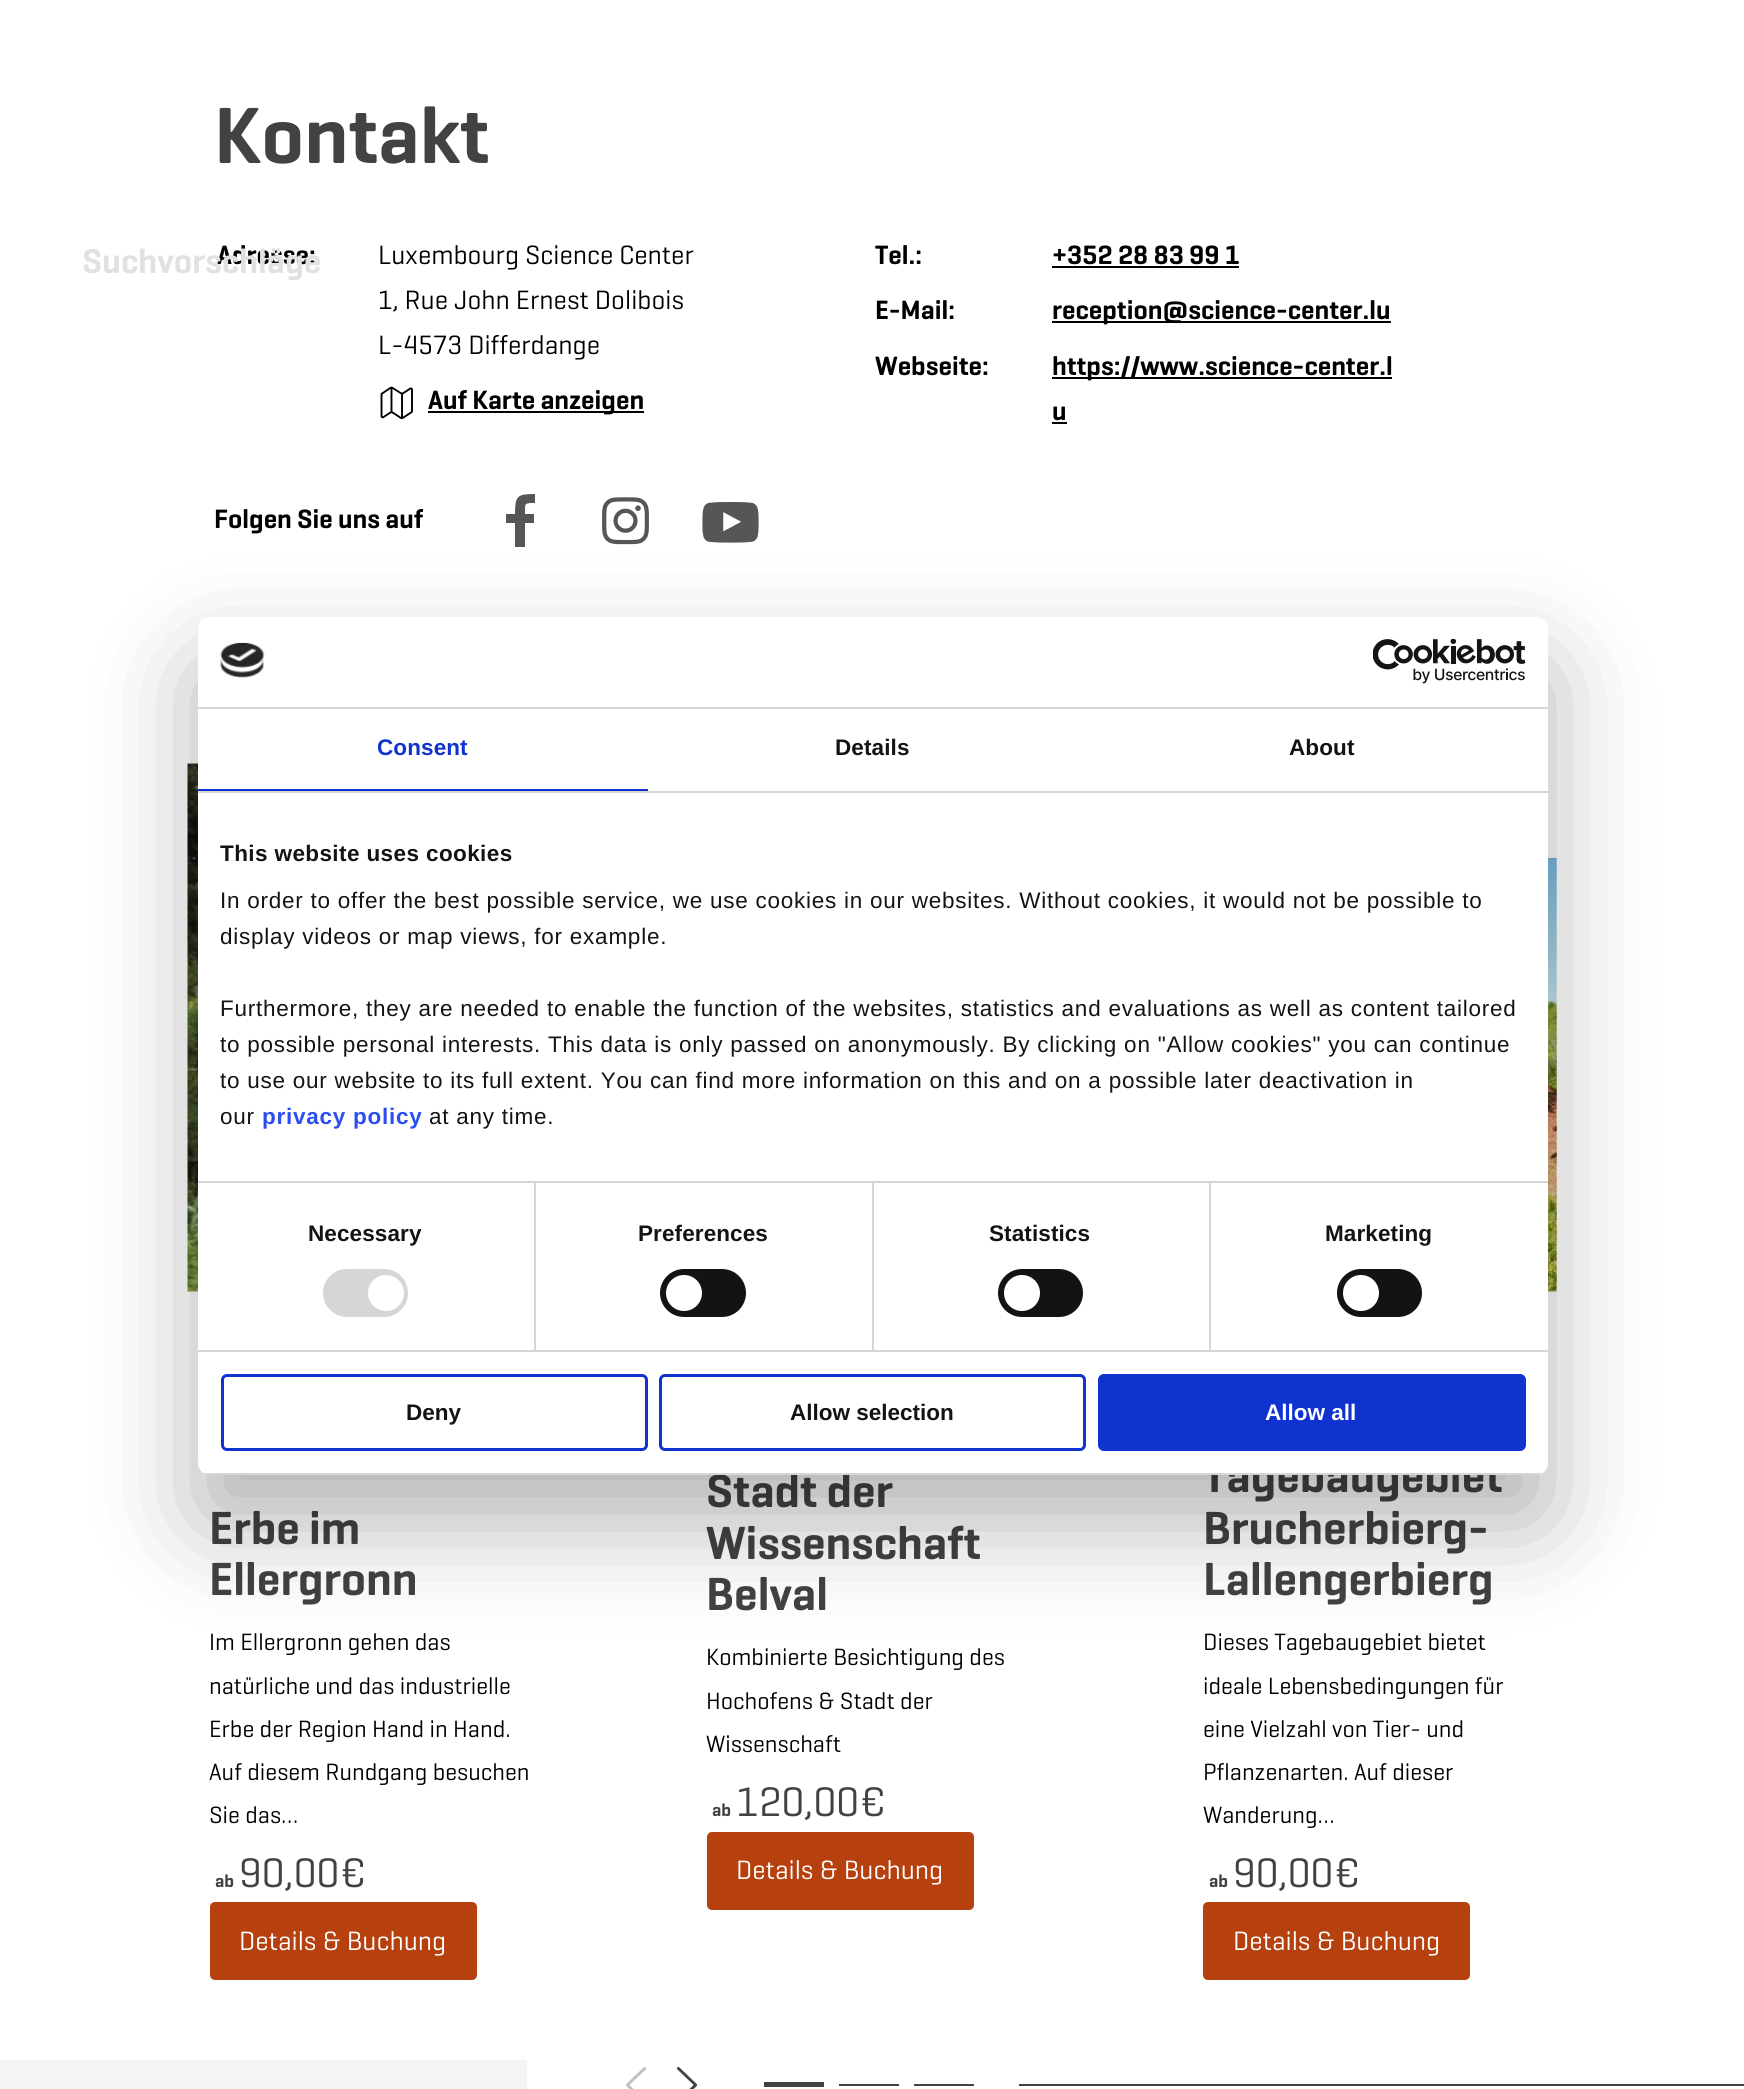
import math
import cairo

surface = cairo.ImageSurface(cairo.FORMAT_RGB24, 1744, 2089)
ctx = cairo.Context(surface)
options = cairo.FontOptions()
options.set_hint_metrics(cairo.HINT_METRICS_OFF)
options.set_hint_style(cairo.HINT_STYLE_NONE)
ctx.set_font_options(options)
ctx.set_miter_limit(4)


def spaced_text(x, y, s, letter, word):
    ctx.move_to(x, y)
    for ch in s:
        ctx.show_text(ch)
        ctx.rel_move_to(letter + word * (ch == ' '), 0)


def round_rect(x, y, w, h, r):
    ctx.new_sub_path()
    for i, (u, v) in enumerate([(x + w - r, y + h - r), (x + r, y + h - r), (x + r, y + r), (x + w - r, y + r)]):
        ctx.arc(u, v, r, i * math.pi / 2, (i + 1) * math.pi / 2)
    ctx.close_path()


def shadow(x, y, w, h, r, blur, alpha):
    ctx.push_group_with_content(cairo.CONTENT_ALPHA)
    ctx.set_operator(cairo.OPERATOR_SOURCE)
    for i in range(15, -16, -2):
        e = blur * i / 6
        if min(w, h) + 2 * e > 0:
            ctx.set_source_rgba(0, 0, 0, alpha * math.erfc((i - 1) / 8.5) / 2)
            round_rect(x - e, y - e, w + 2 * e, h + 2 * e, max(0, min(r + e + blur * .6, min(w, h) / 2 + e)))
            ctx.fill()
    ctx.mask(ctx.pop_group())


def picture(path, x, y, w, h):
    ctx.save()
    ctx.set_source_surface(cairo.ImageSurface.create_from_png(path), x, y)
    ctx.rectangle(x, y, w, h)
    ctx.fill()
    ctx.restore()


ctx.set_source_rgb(1, 1, 1)
ctx.paint()
ctx.select_font_face("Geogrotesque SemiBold")
ctx.set_font_size(27)
ctx.set_source_rgb(0, 0, 0)
ctx.move_to(217, 264)
ctx.show_text("Adresse:")
ctx.set_font_size(35)
ctx.set_source_rgb(0.882, 0.882, 0.882)
ctx.move_to(82, 273)
ctx.show_text("Suchvorschläge")
ctx.set_font_size(81)
ctx.set_source_rgb(0.255, 0.259, 0.255)
ctx.move_to(214, 163)
ctx.show_text("Kontakt")
ctx.select_font_face("Geogrotesque")
ctx.set_font_size(27)
ctx.set_source_rgb(0, 0, 0)
ctx.move_to(378, 264)
ctx.show_text("Luxembourg Science Center")
ctx.move_to(378, 309)
ctx.show_text("1, Rue John Ernest Dolibois")
ctx.move_to(378, 354)
ctx.show_text("L-4573 Differdange")
picture("img1.png", 380, 386, 33, 33)
ctx.rectangle(428, 411, 216, 2)
ctx.fill()
ctx.select_font_face("Geogrotesque SemiBold")
ctx.move_to(428, 409)
ctx.show_text("Auf Karte anzeigen")
ctx.move_to(875, 264)
ctx.show_text("Tel.:")
ctx.move_to(1052, 264)
ctx.show_text("+352 28 83 99 1")
ctx.rectangle(1052, 266, 187, 2)
ctx.fill()
ctx.move_to(875, 319)
ctx.show_text("E-Mail:")
ctx.rectangle(1052, 321, 339, 2)
ctx.fill()
ctx.move_to(1052, 319)
ctx.show_text("reception@science-center.lu")
ctx.move_to(875, 375)
ctx.show_text("Webseite:")
ctx.rectangle(1052, 377, 340, 2)
ctx.fill()
ctx.move_to(1052, 375)
ctx.show_text("https://www.science-center.l")
ctx.move_to(1052, 420)
ctx.show_text("u")
ctx.rectangle(1052, 422, 15, 2)
ctx.fill()
ctx.move_to(214, 528)
ctx.show_text("Folgen Sie uns auf")
ctx.set_source_rgb(0.341, 0.337, 0.337)
ctx.new_path()
ctx.move_to(535, 503)
ctx.curve_to(524, 503, 525, 503, 525, 514)
ctx.line_to(534, 514)
ctx.line_to(534, 523)
ctx.line_to(525, 523)
ctx.line_to(525, 547)
ctx.line_to(515, 547)
ctx.line_to(515, 523)
ctx.line_to(506, 523)
ctx.line_to(506, 514)
ctx.line_to(515, 514)
ctx.curve_to(515, 496, 517, 494, 535, 494)
ctx.close_path()
ctx.fill()
picture("img2.png", 602, 497, 47, 48)
picture("img3.png", 702, 502, 57, 41)
picture("img4.png", 187, 763, 11, 529)
ctx.set_font_size(47.25)
ctx.set_source_rgb(0.255, 0.259, 0.255)
ctx.move_to(209, 1544)
ctx.show_text("Erbe im")
ctx.move_to(209, 1595)
ctx.show_text("Ellergronn")
ctx.select_font_face("Geogrotesque")
ctx.set_font_size(24)
ctx.set_source_rgb(0, 0, 0)
ctx.move_to(209, 1650)
ctx.show_text("Im Ellergronn gehen das")
ctx.move_to(209, 1694)
ctx.show_text("natürliche und das industrielle")
ctx.move_to(209, 1737)
ctx.show_text("Erbe der Region Hand in Hand.")
ctx.move_to(209, 1780)
ctx.show_text("Auf diesem Rundgang besuchen")
ctx.move_to(209, 1823)
ctx.show_text("Sie das…")
ctx.select_font_face("Geogrotesque SemiBold")
ctx.set_font_size(18)
ctx.set_source_rgb(0.255, 0.259, 0.255)
ctx.move_to(215, 1887)
ctx.show_text("ab")
ctx.select_font_face("Geogrotesque")
ctx.set_font_size(42)
ctx.move_to(239, 1887)
ctx.show_text("90,00€")
ctx.set_source_rgb(0.718, 0.251, 0.059)
round_rect(210, 1902, 267, 78, 5)
ctx.fill()
ctx.set_font_size(27)
ctx.set_source_rgb(1, 1, 1)
ctx.move_to(239, 1950)
ctx.show_text("Details & Buchung")
ctx.select_font_face("Geogrotesque SemiBold")
ctx.set_font_size(47.25)
ctx.set_source_rgb(0.255, 0.259, 0.255)
ctx.move_to(706, 1507)
ctx.show_text("Stadt der")
ctx.move_to(706, 1559)
ctx.show_text("Wissenschaft")
ctx.move_to(706, 1610)
ctx.show_text("Belval")
ctx.select_font_face("Geogrotesque")
ctx.set_font_size(24)
ctx.set_source_rgb(0, 0, 0)
ctx.move_to(706, 1665)
ctx.show_text("Kombinierte Besichtigung des")
ctx.move_to(706, 1709)
ctx.show_text("Hochofens & Stadt der")
ctx.move_to(706, 1752)
ctx.show_text("Wissenschaft")
ctx.select_font_face("Geogrotesque SemiBold")
ctx.set_font_size(18)
ctx.set_source_rgb(0.255, 0.259, 0.255)
ctx.move_to(712, 1816)
ctx.show_text("ab")
ctx.select_font_face("Geogrotesque")
ctx.set_font_size(42)
ctx.move_to(736, 1816)
ctx.show_text("120,00€")
ctx.set_source_rgb(0.718, 0.251, 0.059)
round_rect(707, 1832, 267, 78, 5)
ctx.fill()
ctx.set_font_size(27)
ctx.set_source_rgb(1, 1, 1)
ctx.move_to(736, 1879)
ctx.show_text("Details & Buchung")
picture("img5.png", 1548, 858, 9, 434)
ctx.select_font_face("Geogrotesque SemiBold")
ctx.set_font_size(47.25)
ctx.set_source_rgb(0.255, 0.259, 0.255)
ctx.move_to(1203, 1492)
ctx.show_text("Tagebaugebiet")
ctx.move_to(1203, 1544)
ctx.show_text("Brucherbierg-")
ctx.move_to(1203, 1595)
ctx.show_text("Lallengerbierg")
ctx.select_font_face("Geogrotesque")
ctx.set_font_size(24)
ctx.set_source_rgb(0, 0, 0)
ctx.move_to(1203, 1650)
ctx.show_text("Dieses Tagebaugebiet bietet")
ctx.move_to(1203, 1694)
ctx.show_text("ideale Lebensbedingungen für")
ctx.move_to(1203, 1737)
ctx.show_text("eine Vielzahl von Tier- und")
ctx.move_to(1203, 1780)
ctx.show_text("Pflanzenarten. Auf dieser")
ctx.move_to(1203, 1823)
ctx.show_text("Wanderung…")
ctx.select_font_face("Geogrotesque SemiBold")
ctx.set_font_size(18)
ctx.set_source_rgb(0.255, 0.259, 0.255)
ctx.move_to(1209, 1887)
ctx.show_text("ab")
ctx.select_font_face("Geogrotesque")
ctx.set_font_size(42)
ctx.move_to(1233, 1887)
ctx.show_text("90,00€")
ctx.set_source_rgb(0.718, 0.251, 0.059)
round_rect(1203, 1902, 267, 78, 5)
ctx.fill()
ctx.set_font_size(27)
ctx.set_source_rgb(1, 1, 1)
ctx.move_to(1233, 1950)
ctx.show_text("Details & Buchung")
picture("img6.png", 626, 2067, 20, 22)
picture("img7.png", 676, 2067, 22, 22)
ctx.set_source_rgb(0.255, 0.259, 0.255)
ctx.rectangle(765, 2083, 58, 3)
ctx.fill_preserve()
ctx.stroke()
ctx.rectangle(839, 2084, 60, 2)
ctx.fill()
ctx.rectangle(914, 2084, 60, 2)
ctx.fill()
ctx.rectangle(1019, 2084, 725, 2)
ctx.fill()
ctx.set_source_rgb(0.957, 0.957, 0.957)
ctx.rectangle(0, 2060, 527, 29)
ctx.fill()
ctx.set_source_rgb(0, 0, 0)
shadow(198, 665, 1350, 858, 12, 51, 0.3)
ctx.set_source_rgb(1, 1, 1)
round_rect(198, 617, 1350, 858, 12)
ctx.fill()
ctx.set_source_rgb(0.839, 0.839, 0.839)
ctx.rectangle(198, 707, 1350, 2)
ctx.fill()
picture("img8.png", 220, 642, 45, 36)
picture("img9.png", 1373, 639, 153, 45)
ctx.rectangle(198, 791, 1350, 2)
ctx.fill()
ctx.set_source_rgb(0.063, 0.196, 0.812)
ctx.rectangle(198, 789, 450, 2)
ctx.fill()
ctx.select_font_face("Liberation Sans", cairo.FONT_SLANT_NORMAL, cairo.FONT_WEIGHT_BOLD)
ctx.set_font_size(22.5)
spaced_text(377, 755, "Consent", 0.1, 0)
ctx.set_source_rgb(0.078, 0.078, 0.078)
spaced_text(835, 755, "Details", 0.1, 0)
spaced_text(1289, 755, "About", 0.1, 0)
ctx.set_source_rgb(0.839, 0.839, 0.839)
ctx.rectangle(534, 1182, 2, 168)
ctx.fill()
ctx.rectangle(872, 1182, 2, 168)
ctx.fill()
ctx.rectangle(1209, 1182, 2, 168)
ctx.fill()
ctx.rectangle(198, 1181, 1350, 2)
ctx.fill()
ctx.set_source_rgb(0.078, 0.078, 0.078)
spaced_text(220, 861, "This website uses cookies", 0.4, 0)
ctx.select_font_face("Liberation Sans")
spaced_text(220, 908, "In order to offer the best possible service, we use cookies in our websites. Without cookies, it would not be possible to", 0.75, 0)
spaced_text(220, 944, "display videos or map views, for example.", 0.75, 0)
spaced_text(220, 1016, "Furthermore, they are needed to enable the function of the websites, statistics and evaluations as well as content tailored", 0.75, 0)
spaced_text(220, 1052, "to possible personal interests. This data is only passed on anonymously. By clicking on \"Allow cookies\" you can continue", 0.75, 0)
spaced_text(220, 1088, "to use our website to its full extent. You can find more information on this and on a possible later deactivation in", 0.75, 0)
spaced_text(220, 1124, "our", 0.75, 0)
ctx.select_font_face("Liberation Sans", cairo.FONT_SLANT_NORMAL, cairo.FONT_WEIGHT_BOLD)
ctx.set_source_rgb(0.165, 0.306, 0.937)
spaced_text(262, 1124, "privacy policy", 0.75, 0)
ctx.select_font_face("Liberation Sans")
ctx.set_source_rgb(0.078, 0.078, 0.078)
spaced_text(429, 1124, "at any time.", 0.75, 0)
ctx.set_source_rgb(0.839, 0.839, 0.839)
ctx.rectangle(198, 1350, 1350, 2)
ctx.fill()
ctx.select_font_face("Liberation Sans", cairo.FONT_SLANT_NORMAL, cairo.FONT_WEIGHT_BOLD)
ctx.set_source_rgb(0.078, 0.078, 0.078)
spaced_text(308, 1241, "Necessary", 0.1, 0)
ctx.set_source_rgb(0.839, 0.839, 0.839)
round_rect(323, 1269, 85, 48, 24)
ctx.fill()
ctx.set_source_rgb(1, 1, 1)
ctx.arc(386, 1293, 18, 0, 2 * math.pi)
ctx.fill()
ctx.set_source_rgb(0.078, 0.078, 0.078)
spaced_text(638, 1241, "Preferences", 0.1, 0)
round_rect(660, 1269, 86, 48, 24)
ctx.fill()
ctx.set_source_rgb(1, 1, 1)
ctx.arc(684, 1293, 18, 0, 2 * math.pi)
ctx.fill()
ctx.set_source_rgb(0.078, 0.078, 0.078)
spaced_text(989, 1241, "Statistics", 0.1, 0)
round_rect(998, 1269, 85, 48, 24)
ctx.fill()
ctx.set_source_rgb(1, 1, 1)
ctx.arc(1022, 1293, 18, 0, 2 * math.pi)
ctx.fill()
ctx.set_source_rgb(0.078, 0.078, 0.078)
spaced_text(1325, 1241, "Marketing", 0.1, 0)
round_rect(1337, 1269, 85, 48, 24)
ctx.fill()
ctx.set_source_rgb(1, 1, 1)
ctx.arc(1361, 1293, 18, 0, 2 * math.pi)
ctx.fill()
ctx.save()
round_rect(198, 617, 1350, 858, 12)
ctx.clip()
ctx.set_source_rgb(0.839, 0.839, 0.839)
ctx.rectangle(198, 1473, 1350, 2)
ctx.fill()
ctx.restore()
round_rect(222.5, 1375.5, 424, 74, 4.5)
ctx.set_source_rgb(0.063, 0.196, 0.812)
ctx.set_line_width(3)
ctx.stroke()
ctx.set_source_rgb(0.078, 0.078, 0.078)
ctx.move_to(406, 1420)
ctx.show_text("Deny")
round_rect(660.5, 1375.5, 424, 74, 4.5)
ctx.set_source_rgb(0.063, 0.196, 0.812)
ctx.stroke()
ctx.set_source_rgb(0.078, 0.078, 0.078)
ctx.move_to(790, 1420)
ctx.show_text("Allow selection")
ctx.set_source_rgb(0.063, 0.196, 0.812)
round_rect(1099.5, 1375.5, 425, 74, 4.5)
ctx.fill_preserve()
ctx.stroke()
ctx.set_source_rgb(1, 1, 1)
ctx.move_to(1265, 1420)
ctx.show_text("Allow all")
surface.write_to_png("page.png")
